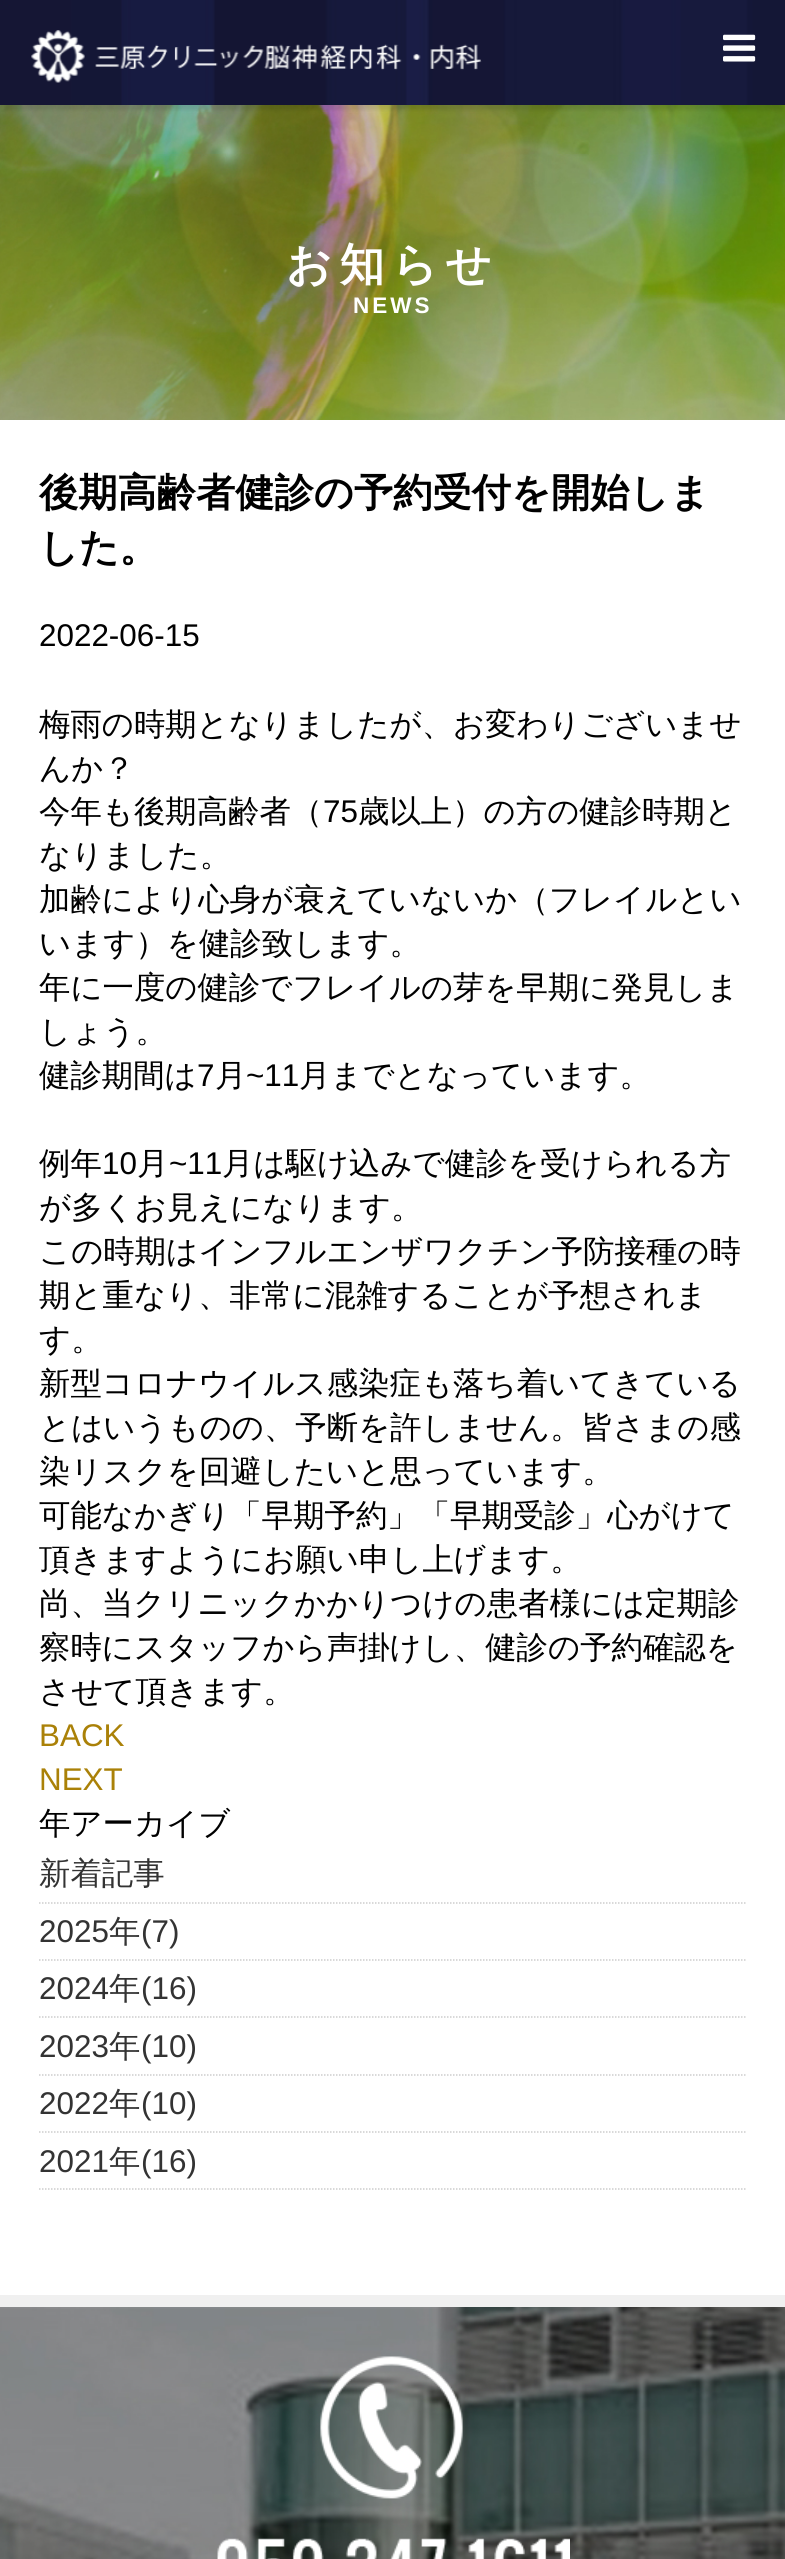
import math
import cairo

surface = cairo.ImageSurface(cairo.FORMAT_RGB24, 785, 2559)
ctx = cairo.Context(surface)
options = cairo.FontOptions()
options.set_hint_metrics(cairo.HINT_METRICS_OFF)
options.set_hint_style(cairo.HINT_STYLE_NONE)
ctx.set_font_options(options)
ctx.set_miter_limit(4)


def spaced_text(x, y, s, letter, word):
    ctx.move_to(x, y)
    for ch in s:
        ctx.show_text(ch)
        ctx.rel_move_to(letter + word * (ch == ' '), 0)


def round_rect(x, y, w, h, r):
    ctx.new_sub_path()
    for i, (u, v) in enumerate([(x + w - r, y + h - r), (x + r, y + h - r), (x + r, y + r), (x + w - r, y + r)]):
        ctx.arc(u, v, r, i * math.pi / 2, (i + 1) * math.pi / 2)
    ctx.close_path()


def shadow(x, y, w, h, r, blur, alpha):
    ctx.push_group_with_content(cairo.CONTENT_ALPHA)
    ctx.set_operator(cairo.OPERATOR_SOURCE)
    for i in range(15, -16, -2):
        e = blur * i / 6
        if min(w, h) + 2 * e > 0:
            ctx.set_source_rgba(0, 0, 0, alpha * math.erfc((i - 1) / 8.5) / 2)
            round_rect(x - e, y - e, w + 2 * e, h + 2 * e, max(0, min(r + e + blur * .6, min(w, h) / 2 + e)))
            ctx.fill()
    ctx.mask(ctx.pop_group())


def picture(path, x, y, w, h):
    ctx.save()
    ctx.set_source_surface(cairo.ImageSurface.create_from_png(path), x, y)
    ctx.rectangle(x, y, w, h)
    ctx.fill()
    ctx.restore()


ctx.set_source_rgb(1, 1, 1)
ctx.paint()
picture("img4.png", 0, 105, 785, 315)
ctx.set_source_rgb(0, 0, 0)
shadow(5, 14, 777, 96, 0, 2, 0.1)
picture("img1.png", 0, 0, 785, 105)
picture("img2.png", 31, 30, 451, 53)
picture("img3.png", 723, 34, 33, 28)
ctx.select_font_face("WenQuanYi Zen Hei", cairo.FONT_SLANT_NORMAL, cairo.FONT_WEIGHT_BOLD)
ctx.set_font_size(45)
ctx.set_source_rgb(1, 1, 1)
spaced_text(286, 280, "お知らせ", 7.5, 0)
ctx.select_font_face("Liberation Sans", cairo.FONT_SLANT_NORMAL, cairo.FONT_WEIGHT_BOLD)
ctx.set_font_size(22.5)
spaced_text(353, 313, "NEWS", 3, 0)
ctx.select_font_face("WenQuanYi Zen Hei", cairo.FONT_SLANT_NORMAL, cairo.FONT_WEIGHT_BOLD)
ctx.set_font_size(39.25)
ctx.set_source_rgb(0, 0, 0)
ctx.move_to(39, 506)
ctx.show_text("後期高齢者健診の予約受付を開始しま")
ctx.move_to(39, 561)
ctx.show_text("した。")
ctx.select_font_face("Liberation Sans")
ctx.set_font_size(31.4)
ctx.move_to(39, 646)
ctx.show_text("2022-06-15")
ctx.select_font_face("WenQuanYi Zen Hei Medium")
ctx.move_to(39, 735)
ctx.show_text("梅雨の時期となりましたが、お変わりございませ")
ctx.move_to(39, 779)
ctx.show_text("んか？")
ctx.move_to(39, 822)
ctx.show_text("今年も後期高齢者（")
ctx.select_font_face("Liberation Sans")
ctx.move_to(323, 822)
ctx.show_text("75")
ctx.select_font_face("WenQuanYi Zen Hei Medium")
ctx.move_to(358, 822)
ctx.show_text("歳以上）の方の健診時期と")
ctx.move_to(39, 866)
ctx.show_text("なりました。")
ctx.move_to(39, 910)
ctx.show_text("加齢により心身が衰えていないか（フレイルとい")
ctx.move_to(39, 954)
ctx.show_text("います）を健診致します。")
ctx.move_to(39, 998)
ctx.show_text("年に一度の健診でフレイルの芽を早期に発見しま")
ctx.move_to(39, 1042)
ctx.show_text("しょう。")
ctx.move_to(39, 1086)
ctx.show_text("健診期間は")
ctx.select_font_face("Liberation Sans")
ctx.move_to(197, 1086)
ctx.show_text("7")
ctx.select_font_face("WenQuanYi Zen Hei Medium")
ctx.move_to(215, 1086)
ctx.show_text("月")
ctx.select_font_face("Liberation Sans")
ctx.move_to(246, 1086)
ctx.show_text("~11")
ctx.select_font_face("WenQuanYi Zen Hei Medium")
ctx.move_to(299, 1086)
ctx.show_text("月までとなっています。")
ctx.move_to(39, 1174)
ctx.show_text("例年")
ctx.select_font_face("Liberation Sans")
ctx.move_to(102, 1174)
ctx.show_text("10")
ctx.select_font_face("WenQuanYi Zen Hei Medium")
ctx.move_to(137, 1174)
ctx.show_text("月")
ctx.select_font_face("Liberation Sans")
ctx.move_to(169, 1174)
ctx.show_text("~11")
ctx.select_font_face("WenQuanYi Zen Hei Medium")
ctx.move_to(222, 1174)
ctx.show_text("月は駆け込みで健診を受けられる方")
ctx.move_to(39, 1218)
ctx.show_text("が多くお見えになります。")
ctx.move_to(39, 1262)
ctx.show_text("この時期はインフルエンザワクチン予防接種の時")
ctx.move_to(39, 1306)
ctx.show_text("期と重なり、非常に混雑することが予想されま")
ctx.move_to(39, 1350)
ctx.show_text("す。")
ctx.move_to(39, 1394)
ctx.show_text("新型コロナウイルス感染症も落ち着いてきている")
ctx.move_to(39, 1438)
ctx.show_text("とはいうものの、予断を許しません。皆さまの感")
ctx.move_to(39, 1482)
ctx.show_text("染リスクを回避したいと思っています。")
ctx.move_to(39, 1526)
ctx.show_text("可能なかぎり「早期予約」「早期受診」心がけて")
ctx.move_to(39, 1570)
ctx.show_text("頂きますようにお願い申し上げます。")
ctx.move_to(39, 1614)
ctx.show_text("尚、当クリニックかかりつけの患者様には定期診")
ctx.move_to(39, 1658)
ctx.show_text("察時にスタッフから声掛けし、健診の予約確認を")
ctx.move_to(39, 1702)
ctx.show_text("させて頂きます。")
ctx.select_font_face("Liberation Sans")
ctx.set_source_rgb(0.667, 0.506, 0.035)
ctx.move_to(39, 1746)
ctx.show_text("BACK")
ctx.move_to(39, 1790)
ctx.show_text("NEXT")
ctx.select_font_face("WenQuanYi Zen Hei Medium")
ctx.set_source_rgb(0, 0, 0)
ctx.move_to(39, 1834)
ctx.show_text("年アーカイブ")
ctx.new_path()
ctx.move_to(39, 1903)
ctx.line_to(747, 1903)
ctx.set_source_rgb(0.8, 0.8, 0.8)
ctx.set_line_width(1.5)
ctx.set_dash([1.5, 1.5])
ctx.stroke()
ctx.set_source_rgb(0.2, 0.2, 0.2)
ctx.move_to(39, 1884)
ctx.show_text("新着記事")
ctx.new_path()
ctx.move_to(39, 1960)
ctx.line_to(747, 1960)
ctx.set_source_rgb(0.8, 0.8, 0.8)
ctx.stroke()
ctx.select_font_face("Liberation Sans")
ctx.set_source_rgb(0.2, 0.2, 0.2)
ctx.move_to(39, 1942)
ctx.show_text("2025")
ctx.select_font_face("WenQuanYi Zen Hei Medium")
ctx.move_to(109, 1942)
ctx.show_text("年")
ctx.select_font_face("Liberation Sans")
ctx.move_to(141, 1942)
ctx.show_text("(7)")
ctx.new_path()
ctx.move_to(39, 2017)
ctx.line_to(747, 2017)
ctx.set_source_rgb(0.8, 0.8, 0.8)
ctx.stroke()
ctx.set_source_rgb(0.2, 0.2, 0.2)
ctx.move_to(39, 1999)
ctx.show_text("2024")
ctx.select_font_face("WenQuanYi Zen Hei Medium")
ctx.move_to(109, 1999)
ctx.show_text("年")
ctx.select_font_face("Liberation Sans")
ctx.move_to(141, 1999)
ctx.show_text("(16)")
ctx.new_path()
ctx.move_to(39, 2075)
ctx.line_to(747, 2075)
ctx.set_source_rgb(0.8, 0.8, 0.8)
ctx.stroke()
ctx.set_source_rgb(0.2, 0.2, 0.2)
ctx.move_to(39, 2057)
ctx.show_text("2023")
ctx.select_font_face("WenQuanYi Zen Hei Medium")
ctx.move_to(109, 2057)
ctx.show_text("年")
ctx.select_font_face("Liberation Sans")
ctx.move_to(141, 2057)
ctx.show_text("(10)")
ctx.new_path()
ctx.move_to(39, 2132)
ctx.line_to(747, 2132)
ctx.set_source_rgb(0.8, 0.8, 0.8)
ctx.stroke()
ctx.set_source_rgb(0.2, 0.2, 0.2)
ctx.move_to(39, 2114)
ctx.show_text("2022")
ctx.select_font_face("WenQuanYi Zen Hei Medium")
ctx.move_to(109, 2114)
ctx.show_text("年")
ctx.select_font_face("Liberation Sans")
ctx.move_to(141, 2114)
ctx.show_text("(10)")
ctx.new_path()
ctx.move_to(39, 2189)
ctx.line_to(747, 2189)
ctx.set_source_rgb(0.8, 0.8, 0.8)
ctx.stroke()
ctx.set_source_rgb(0.2, 0.2, 0.2)
ctx.move_to(39, 2172)
ctx.show_text("2021")
ctx.select_font_face("WenQuanYi Zen Hei Medium")
ctx.move_to(109, 2172)
ctx.show_text("年")
ctx.select_font_face("Liberation Sans")
ctx.move_to(141, 2172)
ctx.show_text("(16)")
ctx.set_source_rgb(0.941, 0.941, 0.941)
ctx.rectangle(0, 2295, 785, 12)
ctx.fill()
picture("img5.png", 0, 2307, 785, 252)
picture("img6.png", 217, 2356, 353, 203)
surface.write_to_png("page.png")
